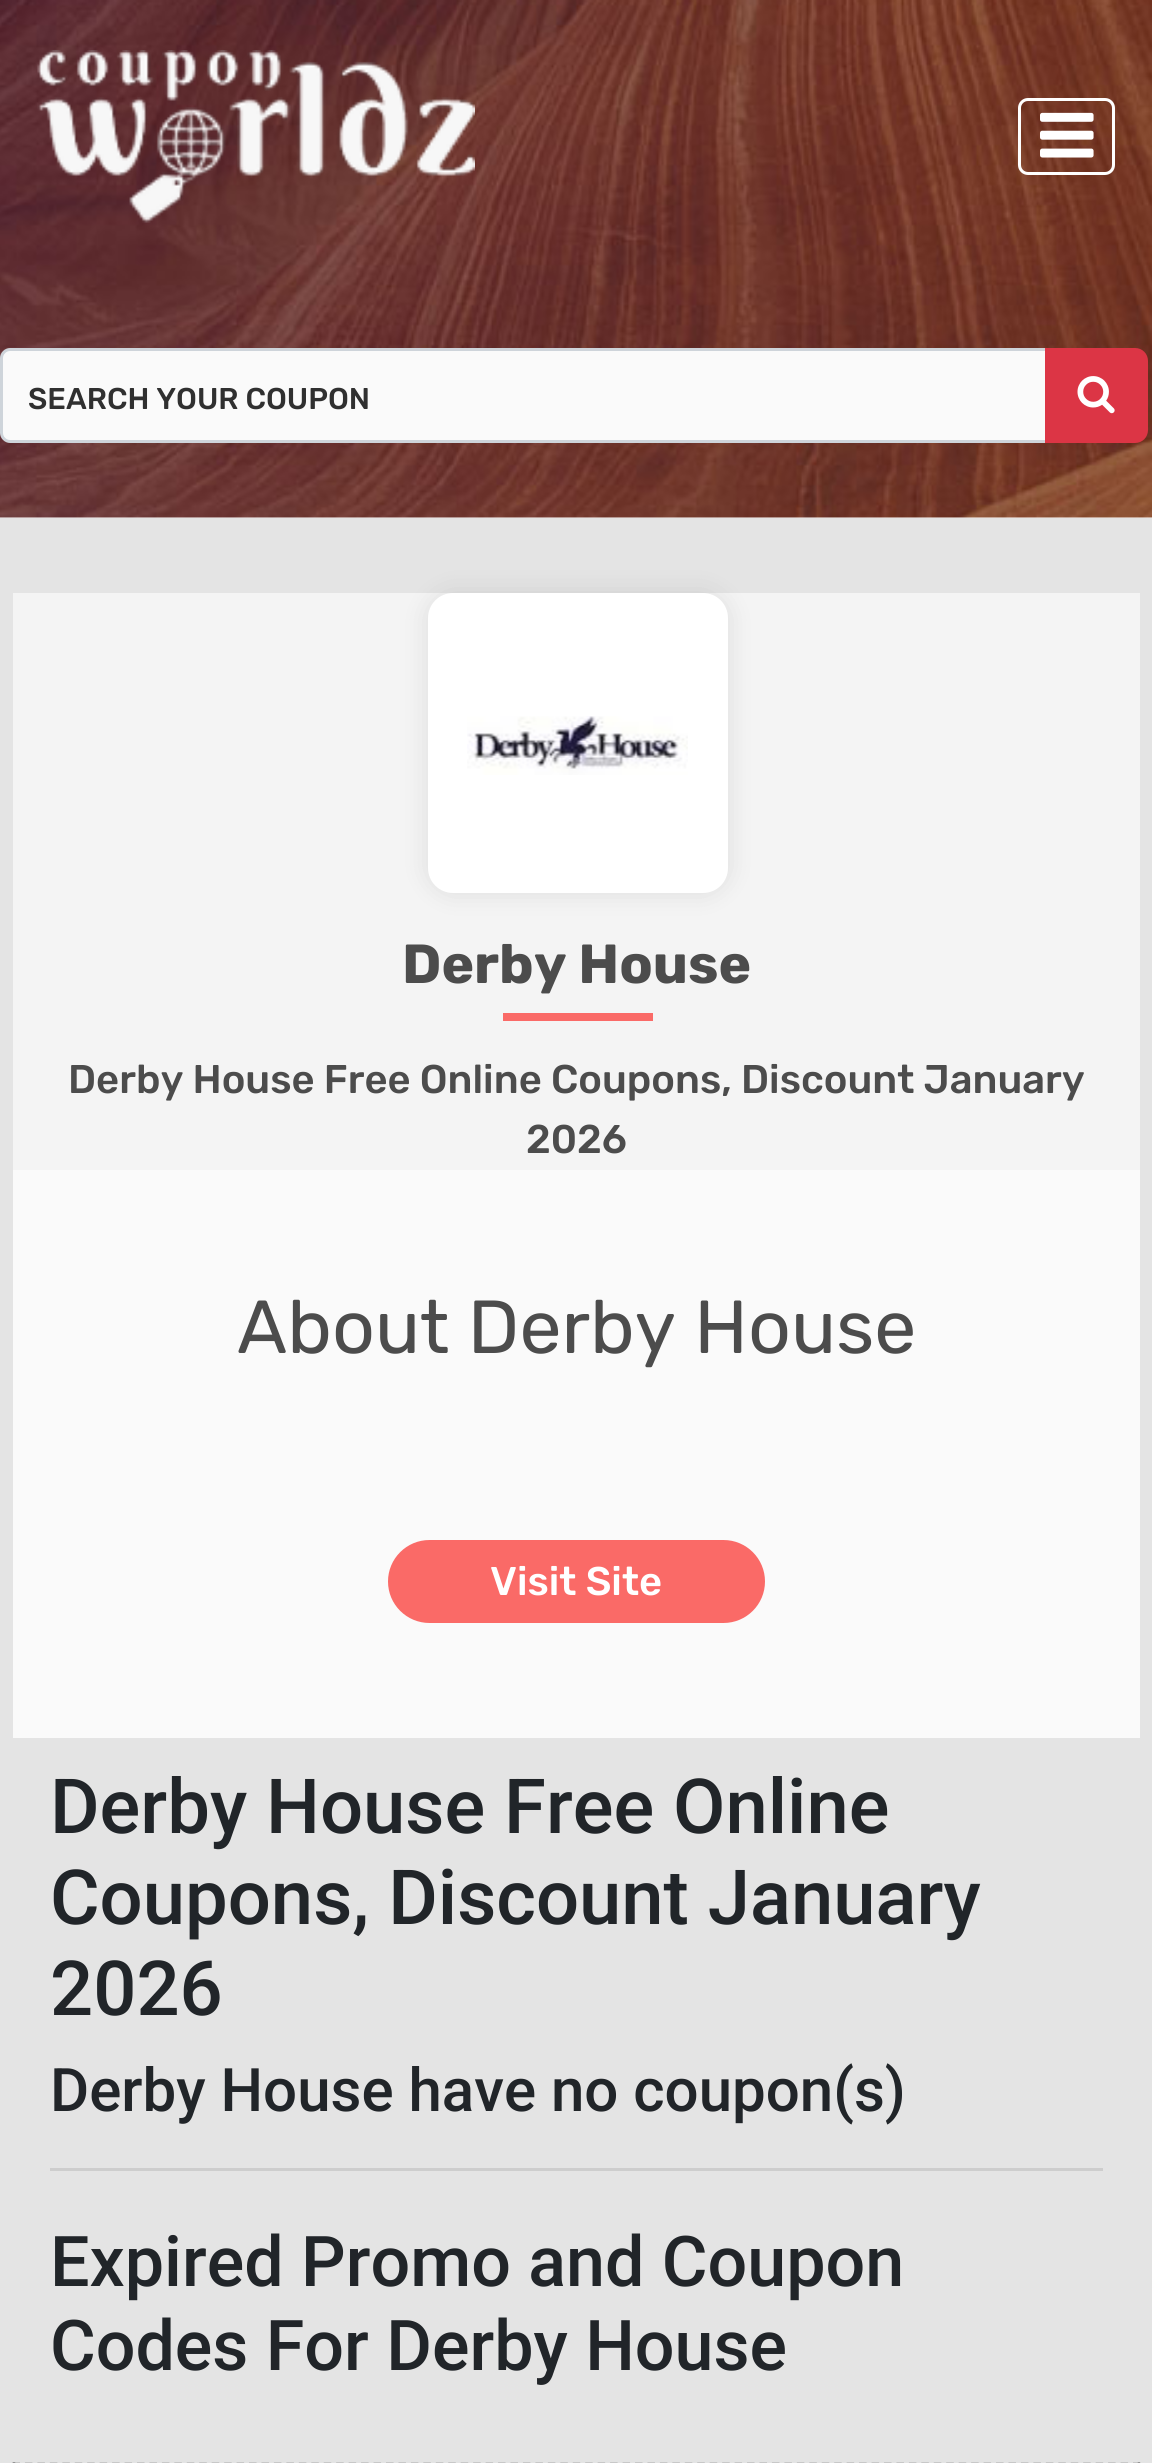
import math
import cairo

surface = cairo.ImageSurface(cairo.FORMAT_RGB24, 1152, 2463)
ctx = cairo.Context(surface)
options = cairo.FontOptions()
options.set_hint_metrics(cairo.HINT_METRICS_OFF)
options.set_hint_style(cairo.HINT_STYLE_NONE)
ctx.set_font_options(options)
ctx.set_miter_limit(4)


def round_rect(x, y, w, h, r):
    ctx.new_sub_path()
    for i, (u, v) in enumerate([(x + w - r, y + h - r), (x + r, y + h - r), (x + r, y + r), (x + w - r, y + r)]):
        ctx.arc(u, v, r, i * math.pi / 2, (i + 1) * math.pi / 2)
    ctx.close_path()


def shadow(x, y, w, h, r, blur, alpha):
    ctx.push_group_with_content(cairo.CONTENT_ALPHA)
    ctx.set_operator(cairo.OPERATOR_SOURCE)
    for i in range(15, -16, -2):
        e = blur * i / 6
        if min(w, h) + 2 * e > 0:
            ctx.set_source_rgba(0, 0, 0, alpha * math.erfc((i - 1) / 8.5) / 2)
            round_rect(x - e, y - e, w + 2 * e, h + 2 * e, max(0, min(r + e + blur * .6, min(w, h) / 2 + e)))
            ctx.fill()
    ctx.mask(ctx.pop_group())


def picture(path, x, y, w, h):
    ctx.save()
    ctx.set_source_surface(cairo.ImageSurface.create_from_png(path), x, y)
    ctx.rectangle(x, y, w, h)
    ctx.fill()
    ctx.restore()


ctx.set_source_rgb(1, 1, 1)
ctx.paint()
picture("img1.png", 0, 0, 1152, 518)
picture("img2.png", 37, 50, 438, 173)
round_rect(1019.5, 99.5, 94, 74, 8.5)
ctx.set_source_rgb(1, 1, 1)
ctx.set_line_width(3)
ctx.stroke()
picture("img3.png", 1040, 112, 54, 46)
ctx.set_source_rgb(0.98, 0.98, 0.98)
ctx.new_path()
ctx.move_to(10, 349.5)
ctx.line_to(1048.5, 349.5)
ctx.line_to(1048.5, 441.5)
ctx.line_to(10, 441.5)
ctx.curve_to(5.5, 441.5, 1.5, 437.5, 1.5, 433)
ctx.line_to(1.5, 358)
ctx.curve_to(1.5, 353.5, 5.5, 349.5, 10, 349.5)
ctx.close_path()
ctx.fill_preserve()
ctx.set_source_rgb(0.808, 0.831, 0.855)
ctx.stroke()
ctx.select_font_face("Rubik Medium")
ctx.set_font_size(30)
ctx.set_source_rgb(0.188, 0.188, 0.188)
ctx.move_to(28, 409)
ctx.show_text("SEARCH YOUR COUPON")
ctx.set_source_rgb(0.863, 0.208, 0.271)
ctx.new_path()
ctx.move_to(1046.5, 349.5)
ctx.line_to(1135, 349.5)
ctx.curve_to(1141.5, 349.5, 1146.5, 354.5, 1146.5, 361)
ctx.line_to(1146.5, 430)
ctx.curve_to(1146.5, 436.5, 1141.5, 441.5, 1135, 441.5)
ctx.line_to(1046.5, 441.5)
ctx.close_path()
ctx.fill_preserve()
ctx.stroke()
picture("img4.png", 1077, 376, 38, 38)
ctx.set_source_rgb(0.894, 0.894, 0.894)
ctx.rectangle(0, 518, 1152, 1945)
ctx.fill()
ctx.set_source_rgb(0.957, 0.957, 0.957)
ctx.rectangle(13, 593, 1127, 577)
ctx.fill()
ctx.set_source_rgb(0, 0, 0)
shadow(428, 593, 300, 300, 25, 12.5, 0.1)
ctx.set_source_rgb(1, 1, 1)
round_rect(428, 593, 300, 300, 25)
ctx.fill()
picture("img5.png", 467, 716, 221, 59)
ctx.select_font_face("Rubik", cairo.FONT_SLANT_NORMAL, cairo.FONT_WEIGHT_BOLD)
ctx.set_font_size(55)
ctx.set_source_rgb(0.298, 0.298, 0.298)
ctx.move_to(402, 983)
ctx.show_text("Derby House")
ctx.set_source_rgb(0.98, 0.416, 0.404)
ctx.rectangle(503, 1013, 150, 8)
ctx.fill()
ctx.select_font_face("Rubik Medium")
ctx.set_font_size(40)
ctx.set_source_rgb(0.298, 0.298, 0.298)
ctx.move_to(68, 1093)
ctx.show_text("Derby House Free Online Coupons, Discount January")
ctx.move_to(526, 1153)
ctx.show_text("2026")
ctx.set_source_rgb(0.98, 0.98, 0.98)
ctx.rectangle(13, 1170, 1127, 568)
ctx.fill()
ctx.select_font_face("Rubik")
ctx.set_font_size(75)
ctx.set_source_rgb(0.298, 0.298, 0.298)
ctx.move_to(237, 1353)
ctx.show_text("About Derby House")
ctx.set_source_rgb(0.98, 0.416, 0.404)
round_rect(389.5, 1541.5, 374, 80, 40)
ctx.fill_preserve()
ctx.stroke()
ctx.select_font_face("Rubik Medium")
ctx.set_font_size(40)
ctx.set_source_rgb(1, 1, 1)
ctx.move_to(490, 1595)
ctx.show_text("Visit Site")
ctx.select_font_face("Roboto Medium")
ctx.set_font_size(76)
ctx.set_source_rgb(0.129, 0.145, 0.161)
ctx.move_to(50, 1833)
ctx.show_text("Derby House Free Online")
ctx.move_to(50, 1924)
ctx.show_text("Coupons, Discount January")
ctx.move_to(50, 2015)
ctx.show_text("2026")
ctx.set_font_size(60)
ctx.move_to(50, 2111)
ctx.show_text("Derby House have no coupon(s)")
ctx.set_source_rgb(0.804, 0.804, 0.804)
ctx.rectangle(50, 2168, 1053, 3)
ctx.fill()
ctx.set_font_size(70)
ctx.set_source_rgb(0.129, 0.145, 0.161)
ctx.move_to(50, 2286)
ctx.show_text("Expired Promo and Coupon")
ctx.move_to(50, 2370)
ctx.show_text("Codes For Derby House")
ctx.new_path()
ctx.move_to(12.5, 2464)
ctx.line_to(1140, 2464)
ctx.set_source_rgb(0.447, 0.447, 0.447)
ctx.set_line_width(2.5)
ctx.set_dash([7.5, 4.95])
ctx.stroke()
ctx.new_path()
ctx.move_to(1139, 2462.5)
ctx.line_to(1139, 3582.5)
ctx.set_source_rgb(0.392, 0.392, 0.392)
ctx.set_dash([7.5, 5])
ctx.stroke()
ctx.new_path()
ctx.move_to(14, 2462.5)
ctx.line_to(14, 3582.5)
ctx.stroke()
surface.write_to_png("page.png")
